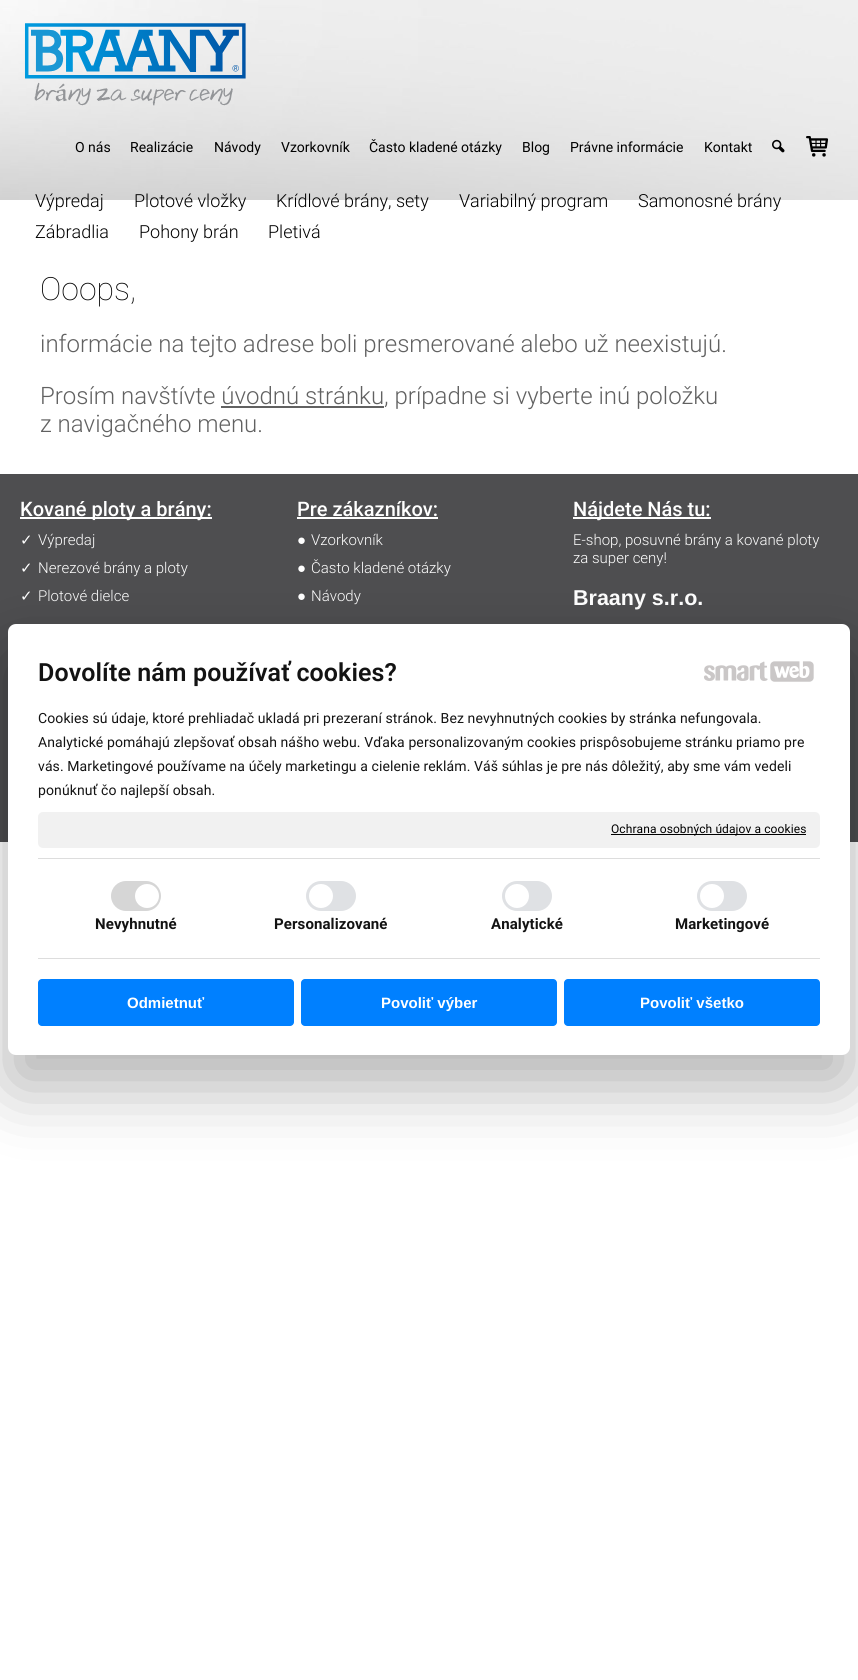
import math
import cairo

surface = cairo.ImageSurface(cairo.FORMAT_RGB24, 858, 1680)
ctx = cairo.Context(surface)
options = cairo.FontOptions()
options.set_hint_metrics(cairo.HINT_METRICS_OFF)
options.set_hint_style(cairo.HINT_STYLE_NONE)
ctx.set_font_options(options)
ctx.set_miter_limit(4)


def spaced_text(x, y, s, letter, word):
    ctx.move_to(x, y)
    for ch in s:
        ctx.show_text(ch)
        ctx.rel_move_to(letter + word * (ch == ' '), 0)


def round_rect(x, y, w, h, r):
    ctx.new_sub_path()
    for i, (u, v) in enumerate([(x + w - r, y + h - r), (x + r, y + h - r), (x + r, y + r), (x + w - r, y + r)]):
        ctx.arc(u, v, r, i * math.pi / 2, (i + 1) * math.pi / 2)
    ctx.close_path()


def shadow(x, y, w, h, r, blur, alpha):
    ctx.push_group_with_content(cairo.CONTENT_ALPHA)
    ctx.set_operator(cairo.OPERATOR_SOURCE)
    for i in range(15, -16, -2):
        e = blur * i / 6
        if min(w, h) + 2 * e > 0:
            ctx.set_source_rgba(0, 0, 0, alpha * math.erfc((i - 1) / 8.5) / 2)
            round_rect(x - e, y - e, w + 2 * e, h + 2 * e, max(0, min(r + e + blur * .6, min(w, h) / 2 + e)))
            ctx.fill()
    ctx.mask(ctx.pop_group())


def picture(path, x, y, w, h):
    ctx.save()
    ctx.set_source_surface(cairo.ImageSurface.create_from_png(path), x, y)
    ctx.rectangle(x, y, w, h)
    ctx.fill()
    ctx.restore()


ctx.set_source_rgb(1, 1, 1)
ctx.paint()
picture("img1.png", 0, 0, 858, 200)
picture("img2.png", 24, 23, 222, 83)
ctx.select_font_face("Roboto")
ctx.set_font_size(14)
ctx.set_source_rgb(0, 0, 0)
ctx.move_to(75, 152)
ctx.show_text("O nás")
ctx.move_to(130, 152)
ctx.show_text("Realizácie")
ctx.move_to(214, 152)
ctx.show_text("Návody")
ctx.move_to(281, 152)
ctx.show_text("Vzorkovník")
ctx.move_to(369, 152)
ctx.show_text("Často kladené otázky")
ctx.move_to(522, 152)
ctx.show_text("Blog")
ctx.move_to(570, 152)
ctx.show_text("Právne informácie")
ctx.move_to(704, 152)
ctx.show_text("Kontakt")
picture("img3.png", 772, 139, 13, 14)
picture("img4.png", 806, 136, 23, 21)
ctx.select_font_face("Roboto Light")
ctx.set_font_size(18)
ctx.move_to(35, 207)
ctx.show_text("Výpredaj")
ctx.move_to(134, 207)
ctx.show_text("Plotové vložky")
ctx.move_to(276, 207)
ctx.show_text("Krídlové brány, sety")
ctx.move_to(459, 207)
ctx.show_text("Variabilný program")
ctx.move_to(638, 207)
ctx.show_text("Samonosné brány")
ctx.move_to(35, 238)
ctx.show_text("Zábradlia")
ctx.move_to(139, 238)
ctx.show_text("Pohony brán")
ctx.move_to(268, 238)
ctx.show_text("Pletivá")
ctx.select_font_face("Roboto Thin")
ctx.set_font_size(32)
ctx.move_to(40, 300)
ctx.show_text("Ooops,")
ctx.select_font_face("Roboto Light")
ctx.set_font_size(24)
ctx.set_source_rgb(0.38, 0.38, 0.38)
ctx.move_to(40, 352)
ctx.show_text("informácie na tejto adrese boli presmerované alebo už neexistujú.")
ctx.move_to(40, 404)
ctx.show_text("Prosím navštívte úvodnú stránku, prípadne si vyberte inú položku")
ctx.rectangle(221, 406, 163, 2)
ctx.fill()
ctx.move_to(40, 432)
ctx.show_text("z navigačného menu.")
ctx.set_source_rgb(0.306, 0.306, 0.314)
ctx.rectangle(0, 474, 858, 368)
ctx.fill()
ctx.set_source_rgb(1, 1, 1)
ctx.rectangle(20, 517, 192, 2)
ctx.fill()
ctx.select_font_face("Roboto Medium")
ctx.set_font_size(20)
ctx.move_to(20, 516)
ctx.show_text("Kované ploty a brány:")
ctx.select_font_face("DejaVu Sans")
ctx.set_font_size(15)
ctx.move_to(20, 545)
ctx.show_text("✓")
ctx.select_font_face("Roboto Light")
ctx.move_to(38, 545)
ctx.show_text("Výpredaj")
ctx.select_font_face("DejaVu Sans")
ctx.move_to(20, 573)
ctx.show_text("✓")
ctx.select_font_face("Roboto Light")
ctx.move_to(38, 573)
ctx.show_text("Nerezové brány a ploty")
ctx.select_font_face("DejaVu Sans")
ctx.move_to(20, 601)
ctx.show_text("✓")
ctx.select_font_face("Roboto Light")
ctx.move_to(38, 601)
ctx.show_text("Plotové dielce")
ctx.select_font_face("Roboto Medium")
ctx.set_font_size(20)
ctx.move_to(297, 516)
ctx.show_text("Pre zákazníkov:")
ctx.rectangle(297, 517, 141, 2)
ctx.fill()
ctx.select_font_face("Liberation Sans")
ctx.set_font_size(15)
ctx.move_to(297, 545)
ctx.show_text("●")
ctx.select_font_face("Roboto Light")
ctx.move_to(311, 545)
ctx.show_text("Vzorkovník")
ctx.select_font_face("Liberation Sans")
ctx.move_to(297, 573)
ctx.show_text("●")
ctx.select_font_face("Roboto Light")
ctx.move_to(311, 573)
ctx.show_text("Často kladené otázky")
ctx.select_font_face("Liberation Sans")
ctx.move_to(297, 601)
ctx.show_text("●")
ctx.select_font_face("Roboto Light")
ctx.move_to(311, 601)
ctx.show_text("Návody")
ctx.rectangle(573, 517, 138, 2)
ctx.fill()
ctx.select_font_face("Roboto Medium")
ctx.set_font_size(20)
ctx.move_to(573, 516)
ctx.show_text("Nájdete Nás tu:")
ctx.select_font_face("Roboto Light")
ctx.set_font_size(15)
ctx.move_to(573, 545)
ctx.show_text("E-shop, posuvné brány a kované ploty")
ctx.move_to(573, 563)
ctx.show_text("za super ceny!")
ctx.select_font_face("Liberation Sans", cairo.FONT_SLANT_NORMAL, cairo.FONT_WEIGHT_BOLD)
ctx.set_font_size(21.5)
ctx.move_to(573, 605)
ctx.show_text("Braany s.r.o.")
ctx.set_source_rgb(0, 0, 0)
shadow(8, 656, 842, 431, 8, 34, 0.3)
ctx.set_source_rgb(1, 1, 1)
round_rect(8, 624, 842, 431, 8)
ctx.fill()
ctx.select_font_face("Roboto SemiBold")
ctx.set_font_size(25)
ctx.set_source_rgb(0.078, 0.078, 0.078)
spaced_text(38, 681, "Dovolíte nám používať cookies?", 0.1, 0)
picture("img5.png", 704, 661, 64, 20)
picture("img6.png", 770, 661, 44, 21)
ctx.select_font_face("Roboto")
ctx.set_font_size(14)
spaced_text(38, 723, "Cookies sú údaje, ktoré prehliadač ukladá pri prezeraní stránok. Bez nevyhnutných cookies by stránka nefungovala.", 0.1, 0)
spaced_text(38, 747, "Analytické pomáhajú zlepšovať obsah nášho webu. Vďaka personalizovaným cookies prispôsobujeme stránku priamo pre", 0.1, 0)
spaced_text(38, 771, "vás. Marketingové používame na účely marketingu a cielenie reklám. Váš súhlas je pre nás dôležitý, aby sme vám vedeli", 0.1, 0)
spaced_text(38, 795, "ponúknuť čo najlepší obsah.", 0.1, 0)
ctx.set_source_rgb(0.945, 0.945, 0.945)
round_rect(38, 812, 782, 36, 5)
ctx.fill()
ctx.set_source_rgb(0, 0, 0)
ctx.rectangle(611, 834, 195, 1)
ctx.fill()
ctx.set_font_size(12)
spaced_text(611, 833, "Ochrana osobných údajov a cookies", 0.1, 0)
ctx.set_source_rgb(0.867, 0.867, 0.867)
ctx.rectangle(38, 858, 782, 1)
ctx.fill()
ctx.rectangle(38, 958, 782, 1)
ctx.fill()
ctx.set_source_rgb(0.839, 0.839, 0.839)
round_rect(111, 881, 50, 30, 15)
ctx.fill()
ctx.set_source_rgb(1, 1, 1)
ctx.arc(147, 896, 12, 0, 2 * math.pi)
ctx.fill()
ctx.select_font_face("Roboto", cairo.FONT_SLANT_NORMAL, cairo.FONT_WEIGHT_BOLD)
ctx.set_font_size(15)
ctx.set_source_rgb(0.078, 0.078, 0.078)
spaced_text(95, 929, "Nevyhnutné", 0.1, 0)
ctx.set_source_rgb(0.875, 0.882, 0.894)
round_rect(306, 881, 50, 30, 15)
ctx.fill()
ctx.set_source_rgb(1, 1, 1)
ctx.arc(321, 896, 12, 0, 2 * math.pi)
ctx.fill()
ctx.set_source_rgb(0.078, 0.078, 0.078)
spaced_text(274, 929, "Personalizované", 0.1, 0)
ctx.set_source_rgb(0.875, 0.882, 0.894)
round_rect(502, 881, 50, 30, 15)
ctx.fill()
ctx.set_source_rgb(1, 1, 1)
ctx.arc(517, 896, 12, 0, 2 * math.pi)
ctx.fill()
ctx.set_source_rgb(0.078, 0.078, 0.078)
spaced_text(491, 929, "Analytické", 0.1, 0)
ctx.set_source_rgb(0.875, 0.882, 0.894)
round_rect(697, 881, 50, 30, 15)
ctx.fill()
ctx.set_source_rgb(1, 1, 1)
ctx.arc(712, 896, 12, 0, 2 * math.pi)
ctx.fill()
ctx.set_source_rgb(0.078, 0.078, 0.078)
spaced_text(675, 929, "Marketingové", 0.1, 0)
ctx.set_source_rgb(0, 0.502, 1)
round_rect(38, 979, 256, 47, 4)
ctx.fill()
ctx.select_font_face("Liberation Sans", cairo.FONT_SLANT_NORMAL, cairo.FONT_WEIGHT_BOLD)
ctx.set_source_rgb(1, 1, 1)
ctx.move_to(127, 1008)
ctx.show_text("Odmietnuť")
ctx.set_source_rgb(0, 0.502, 1)
round_rect(301, 979, 256, 47, 4)
ctx.fill()
ctx.set_source_rgb(1, 1, 1)
ctx.move_to(381, 1008)
ctx.show_text("Povoliť výber")
ctx.set_source_rgb(0, 0.502, 1)
round_rect(564, 979, 256, 47, 4)
ctx.fill()
ctx.set_source_rgb(1, 1, 1)
ctx.move_to(640, 1008)
ctx.show_text("Povoliť všetko")
surface.write_to_png("page.png")
